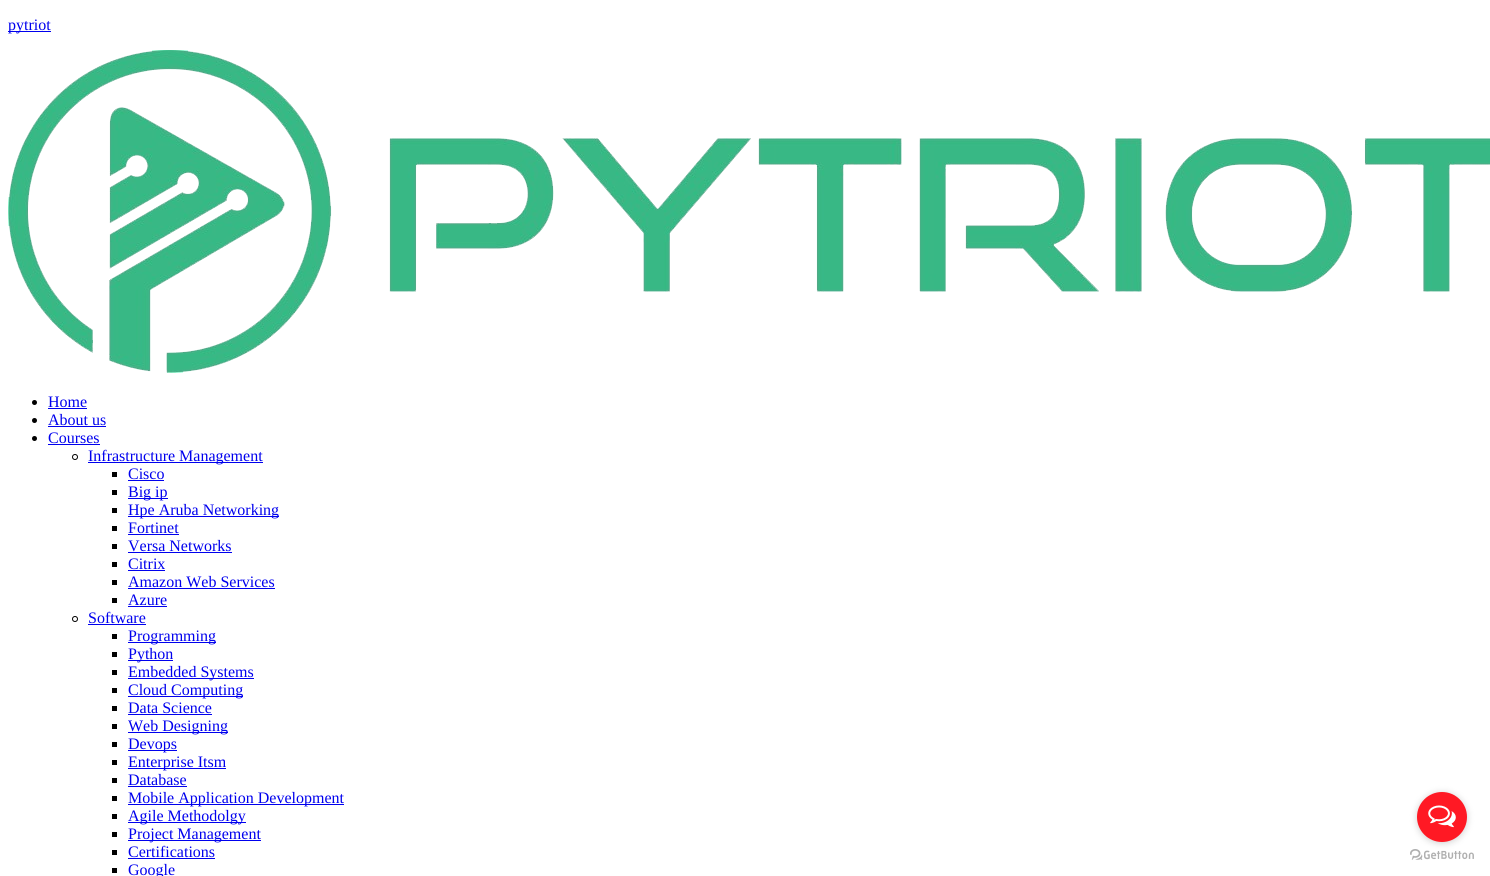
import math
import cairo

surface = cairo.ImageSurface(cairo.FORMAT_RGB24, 1490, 876)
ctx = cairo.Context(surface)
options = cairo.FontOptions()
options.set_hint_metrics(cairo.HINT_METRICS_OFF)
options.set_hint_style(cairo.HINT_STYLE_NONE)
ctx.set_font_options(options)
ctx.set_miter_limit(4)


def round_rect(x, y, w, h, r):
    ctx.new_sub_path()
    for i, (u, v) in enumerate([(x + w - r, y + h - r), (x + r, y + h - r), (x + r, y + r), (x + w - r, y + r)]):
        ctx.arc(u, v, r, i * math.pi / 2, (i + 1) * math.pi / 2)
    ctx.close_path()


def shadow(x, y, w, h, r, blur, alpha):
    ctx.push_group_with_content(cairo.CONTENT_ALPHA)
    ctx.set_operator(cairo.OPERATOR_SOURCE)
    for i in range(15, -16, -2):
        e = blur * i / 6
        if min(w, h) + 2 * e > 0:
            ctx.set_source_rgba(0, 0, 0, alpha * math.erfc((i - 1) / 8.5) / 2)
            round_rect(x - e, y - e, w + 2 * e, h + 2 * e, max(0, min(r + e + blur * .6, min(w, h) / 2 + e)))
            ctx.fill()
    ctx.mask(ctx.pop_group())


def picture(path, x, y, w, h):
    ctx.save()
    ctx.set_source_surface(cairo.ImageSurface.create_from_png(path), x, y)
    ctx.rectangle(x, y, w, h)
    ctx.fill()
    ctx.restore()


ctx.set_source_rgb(1, 1, 1)
ctx.paint()
ctx.set_source_rgb(0, 0, 0.933)
ctx.rectangle(8, 31, 43, 1)
ctx.fill()
ctx.select_font_face("Liberation Serif")
ctx.set_font_size(16)
ctx.move_to(8, 30)
ctx.show_text("pytriot")
picture("img1.png", 8, 50, 1482, 323)
ctx.set_source_rgb(0, 0, 0)
ctx.arc(34.5, 402.5, 2.5, 0, 2 * math.pi)
ctx.fill()
ctx.set_source_rgb(0, 0, 0.933)
ctx.move_to(48, 407)
ctx.show_text("Home")
ctx.rectangle(48, 408, 39, 1)
ctx.fill()
ctx.set_source_rgb(0, 0, 0)
ctx.arc(34.5, 420.5, 2.5, 0, 2 * math.pi)
ctx.fill()
ctx.set_source_rgb(0, 0, 0.933)
ctx.move_to(48, 425)
ctx.show_text("About us")
ctx.rectangle(48, 426, 58, 1)
ctx.fill()
ctx.set_source_rgb(0, 0, 0)
ctx.arc(34.5, 438.5, 2.5, 0, 2 * math.pi)
ctx.fill()
ctx.set_source_rgb(0, 0, 0.933)
ctx.move_to(48, 443)
ctx.show_text("Courses")
ctx.rectangle(48, 444, 52, 1)
ctx.fill()
ctx.arc(75, 457, 2.5, 0, 2 * math.pi)
ctx.set_source_rgb(0, 0, 0)
ctx.set_line_width(1)
ctx.stroke()
ctx.set_source_rgb(0, 0, 0.933)
ctx.rectangle(88, 462, 175, 1)
ctx.fill()
ctx.move_to(88, 461)
ctx.show_text("Infrastructure Management")
ctx.set_source_rgb(0, 0, 0)
ctx.rectangle(112, 472, 5, 5)
ctx.fill()
ctx.set_source_rgb(0, 0, 0.933)
ctx.move_to(128, 479)
ctx.show_text("Cisco")
ctx.rectangle(128, 480, 36, 1)
ctx.fill()
ctx.set_source_rgb(0, 0, 0)
ctx.rectangle(112, 490, 5, 5)
ctx.fill()
ctx.set_source_rgb(0, 0, 0.933)
ctx.rectangle(128, 498, 40, 1)
ctx.fill()
ctx.move_to(128, 497)
ctx.show_text("Big ip")
ctx.set_source_rgb(0, 0, 0)
ctx.rectangle(112, 508, 5, 5)
ctx.fill()
ctx.set_source_rgb(0, 0, 0.933)
ctx.rectangle(128, 516, 151, 1)
ctx.fill()
ctx.move_to(128, 515)
ctx.show_text("Hpe Aruba Networking")
ctx.set_source_rgb(0, 0, 0)
ctx.rectangle(112, 526, 5, 5)
ctx.fill()
ctx.set_source_rgb(0, 0, 0.933)
ctx.move_to(128, 533)
ctx.show_text("Fortinet")
ctx.rectangle(128, 534, 51, 1)
ctx.fill()
ctx.set_source_rgb(0, 0, 0)
ctx.rectangle(112, 544, 5, 5)
ctx.fill()
ctx.set_source_rgb(0, 0, 0.933)
ctx.move_to(128, 551)
ctx.show_text("Versa Networks")
ctx.rectangle(128, 552, 104, 1)
ctx.fill()
ctx.set_source_rgb(0, 0, 0)
ctx.rectangle(112, 562, 5, 5)
ctx.fill()
ctx.set_source_rgb(0, 0, 0.933)
ctx.move_to(128, 569)
ctx.show_text("Citrix")
ctx.rectangle(128, 570, 37, 1)
ctx.fill()
ctx.set_source_rgb(0, 0, 0)
ctx.rectangle(112, 580, 5, 5)
ctx.fill()
ctx.set_source_rgb(0, 0, 0.933)
ctx.move_to(128, 587)
ctx.show_text("Amazon Web Services")
ctx.rectangle(128, 588, 147, 1)
ctx.fill()
ctx.set_source_rgb(0, 0, 0)
ctx.rectangle(112, 598, 5, 5)
ctx.fill()
ctx.set_source_rgb(0, 0, 0.933)
ctx.move_to(128, 605)
ctx.show_text("Azure")
ctx.rectangle(128, 606, 39, 1)
ctx.fill()
ctx.arc(75, 619, 2.5, 0, 2 * math.pi)
ctx.set_source_rgb(0, 0, 0)
ctx.stroke()
ctx.set_source_rgb(0, 0, 0.933)
ctx.move_to(88, 623)
ctx.show_text("Software")
ctx.rectangle(88, 624, 58, 1)
ctx.fill()
ctx.set_source_rgb(0, 0, 0)
ctx.rectangle(112, 634, 5, 5)
ctx.fill()
ctx.set_source_rgb(0, 0, 0.933)
ctx.rectangle(128, 642, 88, 1)
ctx.fill()
ctx.move_to(128, 641)
ctx.show_text("Programming")
ctx.set_source_rgb(0, 0, 0)
ctx.rectangle(112, 652, 5, 5)
ctx.fill()
ctx.set_source_rgb(0, 0, 0.933)
ctx.rectangle(128, 660, 45, 1)
ctx.fill()
ctx.move_to(128, 659)
ctx.show_text("Python")
ctx.set_source_rgb(0, 0, 0)
ctx.rectangle(112, 670, 5, 5)
ctx.fill()
ctx.set_source_rgb(0, 0, 0.933)
ctx.rectangle(128, 678, 126, 1)
ctx.fill()
ctx.move_to(128, 677)
ctx.show_text("Embedded Systems")
ctx.set_source_rgb(0, 0, 0)
ctx.rectangle(112, 688, 5, 5)
ctx.fill()
ctx.set_source_rgb(0, 0, 0.933)
ctx.rectangle(128, 696, 115, 1)
ctx.fill()
ctx.move_to(128, 695)
ctx.show_text("Cloud Computing")
ctx.set_source_rgb(0, 0, 0)
ctx.rectangle(112, 706, 5, 5)
ctx.fill()
ctx.set_source_rgb(0, 0, 0.933)
ctx.move_to(128, 713)
ctx.show_text("Data Science")
ctx.rectangle(128, 714, 84, 1)
ctx.fill()
ctx.set_source_rgb(0, 0, 0)
ctx.rectangle(112, 724, 5, 5)
ctx.fill()
ctx.set_source_rgb(0, 0, 0.933)
ctx.rectangle(128, 732, 100, 1)
ctx.fill()
ctx.move_to(128, 731)
ctx.show_text("Web Designing")
ctx.set_source_rgb(0, 0, 0)
ctx.rectangle(112, 742, 5, 5)
ctx.fill()
ctx.set_source_rgb(0, 0, 0.933)
ctx.rectangle(128, 750, 49, 1)
ctx.fill()
ctx.move_to(128, 749)
ctx.show_text("Devops")
ctx.set_source_rgb(0, 0, 0)
ctx.rectangle(112, 760, 5, 5)
ctx.fill()
ctx.set_source_rgb(0, 0, 0.933)
ctx.rectangle(128, 768, 98, 1)
ctx.fill()
ctx.move_to(128, 767)
ctx.show_text("Enterprise Itsm")
ctx.set_source_rgb(0, 0, 0)
ctx.rectangle(112, 778, 5, 5)
ctx.fill()
ctx.set_source_rgb(0, 0, 0.933)
ctx.move_to(128, 785)
ctx.show_text("Database")
ctx.rectangle(128, 786, 59, 1)
ctx.fill()
ctx.set_source_rgb(0, 0, 0)
ctx.rectangle(112, 796, 5, 5)
ctx.fill()
ctx.set_source_rgb(0, 0, 0.933)
ctx.rectangle(128, 804, 216, 1)
ctx.fill()
ctx.move_to(128, 803)
ctx.show_text("Mobile Application Development")
ctx.set_source_rgb(0, 0, 0)
ctx.rectangle(112, 814, 5, 5)
ctx.fill()
ctx.set_source_rgb(0, 0, 0.933)
ctx.rectangle(128, 822, 118, 1)
ctx.fill()
ctx.move_to(128, 821)
ctx.show_text("Agile Methodolgy")
ctx.set_source_rgb(0, 0, 0)
ctx.rectangle(112, 832, 5, 5)
ctx.fill()
ctx.set_source_rgb(0, 0, 0.933)
ctx.rectangle(128, 840, 133, 1)
ctx.fill()
ctx.move_to(128, 839)
ctx.show_text("Project Management")
ctx.set_source_rgb(0, 0, 0)
ctx.rectangle(112, 850, 5, 5)
ctx.fill()
ctx.set_source_rgb(0, 0, 0.933)
ctx.move_to(128, 857)
ctx.show_text("Certifications")
ctx.rectangle(128, 858, 87, 1)
ctx.fill()
ctx.set_source_rgb(0, 0, 0)
ctx.rectangle(112, 868, 5, 5)
ctx.fill()
ctx.set_source_rgb(0, 0, 0.933)
ctx.move_to(128, 875)
ctx.show_text("Google")
picture("img3.png", 1410, 849, 64, 11)
ctx.set_source_rgb(0.533, 0.533, 0.533)
shadow(1417, 793, 50, 50, 25, 3.5, 0.4)
ctx.set_source_rgb(1, 0.098, 0.141)
ctx.arc(1442, 817, 25, 0, 2 * math.pi)
ctx.fill()
picture("img2.png", 1428, 805, 28, 23)
surface.write_to_png("page.png")
